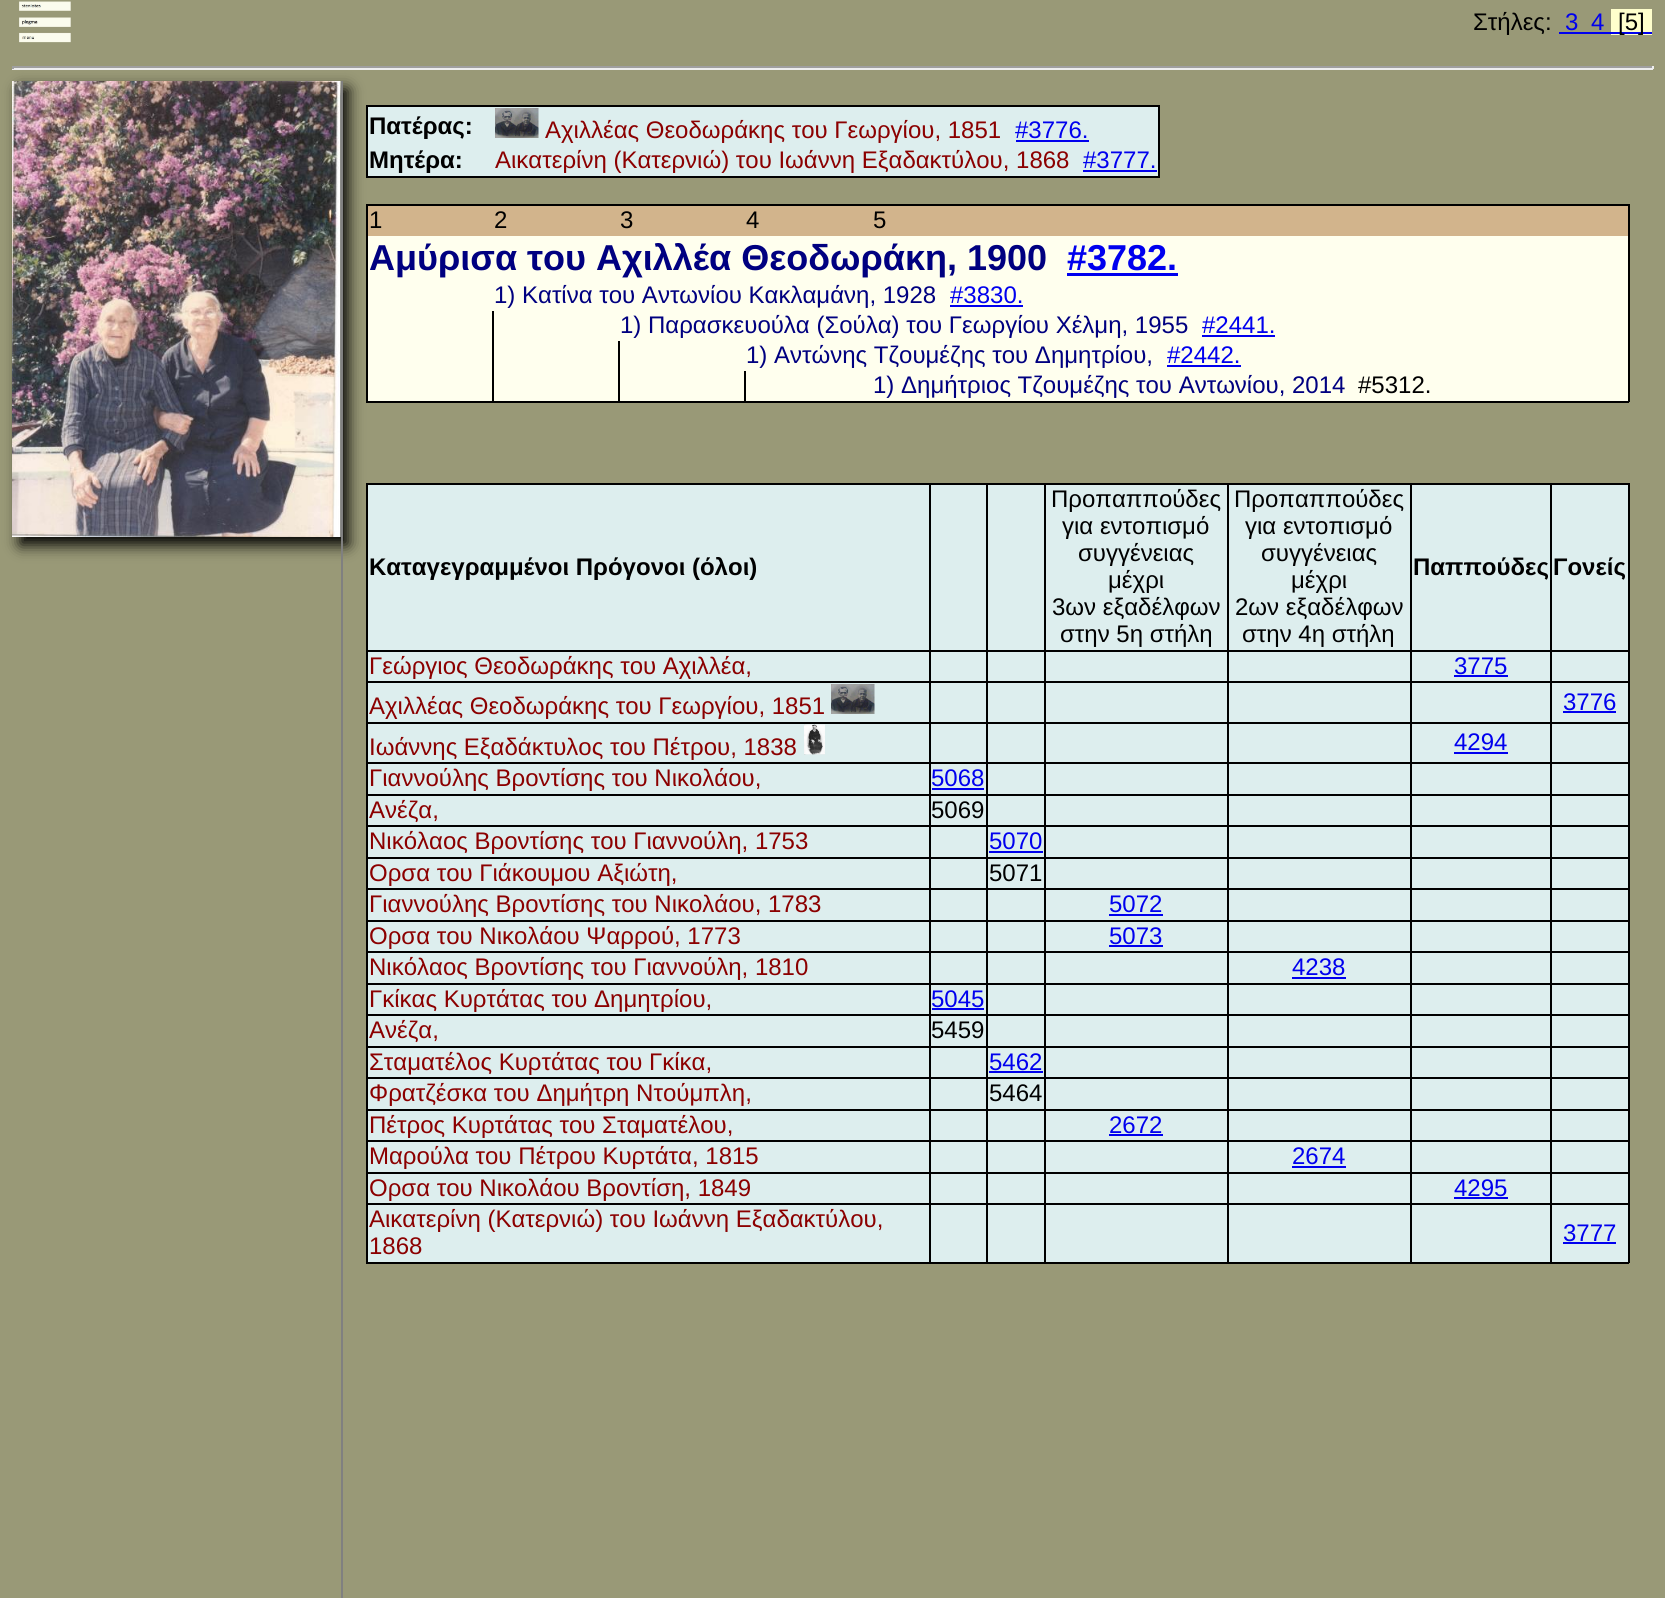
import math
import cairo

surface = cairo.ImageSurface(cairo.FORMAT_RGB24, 1665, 1598)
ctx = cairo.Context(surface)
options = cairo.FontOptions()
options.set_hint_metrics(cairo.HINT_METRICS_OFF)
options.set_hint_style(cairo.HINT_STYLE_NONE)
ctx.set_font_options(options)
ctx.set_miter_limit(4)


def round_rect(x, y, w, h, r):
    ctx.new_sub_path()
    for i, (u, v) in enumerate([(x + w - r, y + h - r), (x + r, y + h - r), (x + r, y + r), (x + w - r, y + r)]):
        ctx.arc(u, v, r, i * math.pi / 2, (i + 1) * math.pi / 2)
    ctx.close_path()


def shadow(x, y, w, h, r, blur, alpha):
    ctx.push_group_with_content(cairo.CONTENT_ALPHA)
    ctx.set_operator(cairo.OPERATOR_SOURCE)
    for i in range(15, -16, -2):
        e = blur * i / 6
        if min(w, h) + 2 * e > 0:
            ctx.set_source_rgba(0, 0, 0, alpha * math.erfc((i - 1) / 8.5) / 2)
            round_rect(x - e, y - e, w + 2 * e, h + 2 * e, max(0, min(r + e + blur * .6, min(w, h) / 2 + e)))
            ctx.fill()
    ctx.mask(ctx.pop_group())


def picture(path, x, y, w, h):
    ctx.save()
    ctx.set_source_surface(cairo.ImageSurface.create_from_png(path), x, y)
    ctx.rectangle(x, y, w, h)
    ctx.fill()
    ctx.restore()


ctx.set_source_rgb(0.6, 0.6, 0.467)
ctx.paint()
picture("img1.png", 19, 1, 52, 42)
ctx.select_font_face("Liberation Sans")
ctx.set_font_size(24)
ctx.set_source_rgb(0, 0, 0)
ctx.move_to(1473, 30)
ctx.show_text("Στήλες:")
ctx.set_source_rgb(0, 0, 0.933)
ctx.move_to(1565, 30)
ctx.show_text("3")
ctx.rectangle(1559, 32, 52, 2)
ctx.fill()
ctx.move_to(1591, 30)
ctx.show_text("4")
ctx.set_source_rgb(1, 1, 0.8)
ctx.rectangle(1611, 9, 41, 26)
ctx.fill()
ctx.set_source_rgb(0, 0, 0.933)
ctx.rectangle(1611, 32, 41, 2)
ctx.fill()
ctx.set_source_rgb(0, 0, 0)
ctx.move_to(1618, 30)
ctx.show_text("[5]")
ctx.set_source_rgb(0, 0, 0)
shadow(20, 89, 328, 456, 0, 7.5, 1)
ctx.set_source_rgb(0.624, 0.624, 0.624)
ctx.rectangle(12, 66, 1641, 2)
ctx.fill()
ctx.set_source_rgb(0.933, 0.933, 0.933)
ctx.rectangle(1652, 66, 2, 3)
ctx.fill()
ctx.rectangle(12, 68, 1641, 2)
ctx.fill()
ctx.set_source_rgb(0.624, 0.624, 0.624)
ctx.rectangle(12, 66, 2, 3)
ctx.fill()
picture("img2.png", 12, 81, 329, 456)
ctx.set_source_rgb(0.502, 0.502, 0.502)
ctx.rectangle(341, 81, 2, 1517)
ctx.fill()
ctx.set_source_rgb(0.867, 0.933, 0.933)
ctx.rectangle(368, 107, 790, 69)
ctx.fill()
ctx.set_source_rgb(0, 0, 0)
ctx.rectangle(366, 105, 794, 2)
ctx.fill()
ctx.rectangle(1158, 105, 2, 72)
ctx.fill()
ctx.rectangle(366, 176, 794, 2)
ctx.fill()
ctx.rectangle(366, 105, 2, 72)
ctx.fill()
ctx.select_font_face("Liberation Sans", cairo.FONT_SLANT_NORMAL, cairo.FONT_WEIGHT_BOLD)
ctx.move_to(369, 134)
ctx.show_text("Πατέρας:")
picture("img3.png", 495, 108, 44, 30)
ctx.select_font_face("Liberation Sans")
ctx.set_source_rgb(0.545, 0, 0)
ctx.move_to(545, 138)
ctx.show_text("Αχιλλέας Θεοδωράκης του Γεωργίου, 1851")
ctx.set_source_rgb(0, 0, 0.933)
ctx.move_to(1015, 138)
ctx.show_text("#3776.")
ctx.rectangle(1016, 140, 73, 2)
ctx.fill()
ctx.select_font_face("Liberation Sans", cairo.FONT_SLANT_NORMAL, cairo.FONT_WEIGHT_BOLD)
ctx.set_source_rgb(0, 0, 0)
ctx.move_to(369, 168)
ctx.show_text("Μητέρα:")
ctx.select_font_face("Liberation Sans")
ctx.set_source_rgb(0.545, 0, 0)
ctx.move_to(495, 168)
ctx.show_text("Αικατερίνη (Κατερνιώ) του Ιωάννη Εξαδακτύλου, 1868")
ctx.set_source_rgb(0, 0, 0.933)
ctx.move_to(1083, 168)
ctx.show_text("#3777.")
ctx.rectangle(1083, 170, 74, 2)
ctx.fill()
ctx.set_source_rgb(1, 1, 0.933)
ctx.rectangle(368, 236, 1260, 165)
ctx.fill()
ctx.set_source_rgb(0, 0, 0)
ctx.rectangle(366, 204, 1263, 2)
ctx.fill()
ctx.rectangle(1628, 204, 2, 198)
ctx.fill()
ctx.rectangle(366, 401, 1263, 2)
ctx.fill()
ctx.rectangle(366, 204, 2, 198)
ctx.fill()
ctx.set_source_rgb(0.824, 0.706, 0.549)
ctx.rectangle(368, 206, 1260, 30)
ctx.fill()
ctx.set_source_rgb(0, 0, 0)
ctx.move_to(369, 228)
ctx.show_text("1")
ctx.move_to(494, 228)
ctx.show_text("2")
ctx.move_to(620, 228)
ctx.show_text("3")
ctx.move_to(746, 228)
ctx.show_text("4")
ctx.move_to(873, 228)
ctx.show_text("5")
ctx.select_font_face("Liberation Sans", cairo.FONT_SLANT_NORMAL, cairo.FONT_WEIGHT_BOLD)
ctx.set_font_size(36)
ctx.set_source_rgb(0, 0, 0.502)
ctx.move_to(369, 270)
ctx.show_text("Αμύρισα του Αχιλλέα Θεοδωράκη, 1900")
ctx.set_source_rgb(0, 0, 0.933)
ctx.move_to(1067, 270)
ctx.show_text("#3782.")
ctx.rectangle(1067, 273, 111, 3)
ctx.fill()
ctx.select_font_face("Liberation Sans")
ctx.set_font_size(24)
ctx.set_source_rgb(0, 0, 0.502)
ctx.move_to(494, 303)
ctx.show_text("1) Κατίνα του Αντωνίου Κακλαμάνη, 1928")
ctx.set_source_rgb(0, 0, 0.933)
ctx.move_to(950, 303)
ctx.show_text("#3830.")
ctx.rectangle(950, 305, 73, 2)
ctx.fill()
ctx.set_source_rgb(0, 0, 0.502)
ctx.move_to(620, 333)
ctx.show_text("1) Παρασκευούλα (Σούλα) του Γεωργίου Χέλμη, 1955")
ctx.set_source_rgb(0, 0, 0.933)
ctx.move_to(1202, 333)
ctx.show_text("#2441.")
ctx.rectangle(1202, 335, 73, 2)
ctx.fill()
ctx.set_source_rgb(0, 0, 0.502)
ctx.move_to(746, 363)
ctx.show_text("1) Αντώνης Τζουμέζης του Δημητρίου,")
ctx.set_source_rgb(0, 0, 0.933)
ctx.move_to(1167, 363)
ctx.show_text("#2442.")
ctx.rectangle(1167, 365, 74, 2)
ctx.fill()
ctx.set_source_rgb(0, 0, 0)
ctx.rectangle(492, 311, 2, 91)
ctx.fill()
ctx.rectangle(618, 341, 2, 61)
ctx.fill()
ctx.rectangle(744, 371, 2, 31)
ctx.fill()
ctx.set_source_rgb(0, 0, 0.502)
ctx.move_to(873, 393)
ctx.show_text("1) Δημήτριος Τζουμέζης του Αντωνίου, 2014")
ctx.set_source_rgb(0, 0, 0)
ctx.move_to(1358, 393)
ctx.show_text("#5312.")
ctx.set_source_rgb(0.867, 0.933, 0.933)
ctx.rectangle(368, 485, 561, 165)
ctx.fill()
ctx.set_source_rgb(0, 0, 0)
ctx.rectangle(1550, 483, 79, 2)
ctx.fill()
ctx.rectangle(1550, 650, 79, 2)
ctx.fill()
ctx.rectangle(1550, 681, 79, 2)
ctx.fill()
ctx.rectangle(1550, 722, 79, 2)
ctx.fill()
ctx.rectangle(1550, 762, 79, 2)
ctx.fill()
ctx.rectangle(1550, 794, 79, 2)
ctx.fill()
ctx.rectangle(1550, 825, 79, 2)
ctx.fill()
ctx.rectangle(1550, 857, 79, 2)
ctx.fill()
ctx.rectangle(1550, 888, 79, 2)
ctx.fill()
ctx.rectangle(1550, 920, 79, 2)
ctx.fill()
ctx.rectangle(1550, 951, 79, 2)
ctx.fill()
ctx.rectangle(1550, 983, 79, 2)
ctx.fill()
ctx.rectangle(1550, 1014, 79, 2)
ctx.fill()
ctx.rectangle(1550, 1046, 79, 2)
ctx.fill()
ctx.rectangle(1550, 1077, 79, 2)
ctx.fill()
ctx.rectangle(1550, 1109, 79, 2)
ctx.fill()
ctx.rectangle(1550, 1140, 79, 2)
ctx.fill()
ctx.rectangle(1550, 1172, 79, 2)
ctx.fill()
ctx.rectangle(1550, 1203, 79, 2)
ctx.fill()
ctx.rectangle(1628, 1203, 2, 60)
ctx.fill()
ctx.rectangle(1550, 1262, 79, 2)
ctx.fill()
ctx.rectangle(1550, 1203, 2, 60)
ctx.fill()
ctx.rectangle(1410, 1203, 141, 2)
ctx.fill()
ctx.rectangle(1550, 1172, 2, 33)
ctx.fill()
ctx.rectangle(1410, 1172, 141, 2)
ctx.fill()
ctx.rectangle(1550, 1140, 2, 33)
ctx.fill()
ctx.rectangle(1410, 1140, 141, 2)
ctx.fill()
ctx.rectangle(1550, 1109, 2, 33)
ctx.fill()
ctx.rectangle(1410, 1109, 141, 2)
ctx.fill()
ctx.rectangle(1550, 1077, 2, 33)
ctx.fill()
ctx.rectangle(1410, 1077, 141, 2)
ctx.fill()
ctx.rectangle(1550, 1046, 2, 33)
ctx.fill()
ctx.rectangle(1410, 1046, 141, 2)
ctx.fill()
ctx.rectangle(1550, 1014, 2, 33)
ctx.fill()
ctx.rectangle(1410, 1014, 141, 2)
ctx.fill()
ctx.rectangle(1550, 983, 2, 33)
ctx.fill()
ctx.rectangle(1410, 983, 141, 2)
ctx.fill()
ctx.rectangle(1550, 951, 2, 33)
ctx.fill()
ctx.rectangle(1410, 951, 141, 2)
ctx.fill()
ctx.rectangle(1550, 920, 2, 33)
ctx.fill()
ctx.rectangle(1410, 920, 141, 2)
ctx.fill()
ctx.rectangle(1550, 888, 2, 33)
ctx.fill()
ctx.rectangle(1410, 888, 141, 2)
ctx.fill()
ctx.rectangle(1550, 857, 2, 33)
ctx.fill()
ctx.rectangle(1410, 857, 141, 2)
ctx.fill()
ctx.rectangle(1550, 825, 2, 33)
ctx.fill()
ctx.rectangle(1410, 825, 141, 2)
ctx.fill()
ctx.rectangle(1550, 794, 2, 33)
ctx.fill()
ctx.rectangle(1410, 794, 141, 2)
ctx.fill()
ctx.rectangle(1550, 762, 2, 33)
ctx.fill()
ctx.rectangle(1410, 762, 141, 2)
ctx.fill()
ctx.rectangle(1550, 722, 2, 42)
ctx.fill()
ctx.rectangle(1410, 722, 141, 2)
ctx.fill()
ctx.rectangle(1550, 681, 2, 42)
ctx.fill()
ctx.rectangle(1410, 681, 141, 2)
ctx.fill()
ctx.rectangle(1550, 650, 2, 33)
ctx.fill()
ctx.rectangle(1410, 650, 141, 2)
ctx.fill()
ctx.rectangle(1550, 483, 2, 168)
ctx.fill()
ctx.rectangle(1410, 483, 141, 2)
ctx.fill()
ctx.rectangle(1410, 1262, 141, 2)
ctx.fill()
ctx.rectangle(1410, 1203, 2, 60)
ctx.fill()
ctx.rectangle(1227, 1203, 185, 2)
ctx.fill()
ctx.rectangle(1410, 1172, 2, 33)
ctx.fill()
ctx.rectangle(1227, 1172, 185, 2)
ctx.fill()
ctx.rectangle(1410, 1140, 2, 33)
ctx.fill()
ctx.rectangle(1227, 1140, 185, 2)
ctx.fill()
ctx.rectangle(1410, 1109, 2, 33)
ctx.fill()
ctx.rectangle(1227, 1109, 185, 2)
ctx.fill()
ctx.rectangle(1410, 1077, 2, 33)
ctx.fill()
ctx.rectangle(1227, 1077, 185, 2)
ctx.fill()
ctx.rectangle(1410, 1046, 2, 33)
ctx.fill()
ctx.rectangle(1227, 1046, 185, 2)
ctx.fill()
ctx.rectangle(1410, 1014, 2, 33)
ctx.fill()
ctx.rectangle(1227, 1014, 185, 2)
ctx.fill()
ctx.rectangle(1410, 983, 2, 33)
ctx.fill()
ctx.rectangle(1227, 983, 185, 2)
ctx.fill()
ctx.rectangle(1410, 951, 2, 33)
ctx.fill()
ctx.rectangle(1227, 951, 185, 2)
ctx.fill()
ctx.rectangle(1410, 920, 2, 33)
ctx.fill()
ctx.rectangle(1227, 920, 185, 2)
ctx.fill()
ctx.rectangle(1410, 888, 2, 33)
ctx.fill()
ctx.rectangle(1227, 888, 185, 2)
ctx.fill()
ctx.rectangle(1410, 857, 2, 33)
ctx.fill()
ctx.rectangle(1227, 857, 185, 2)
ctx.fill()
ctx.rectangle(1410, 825, 2, 33)
ctx.fill()
ctx.rectangle(1227, 825, 185, 2)
ctx.fill()
ctx.rectangle(1410, 794, 2, 33)
ctx.fill()
ctx.rectangle(1227, 794, 185, 2)
ctx.fill()
ctx.rectangle(1410, 762, 2, 33)
ctx.fill()
ctx.rectangle(1227, 762, 185, 2)
ctx.fill()
ctx.rectangle(1410, 722, 2, 42)
ctx.fill()
ctx.rectangle(1227, 722, 185, 2)
ctx.fill()
ctx.rectangle(1410, 681, 2, 42)
ctx.fill()
ctx.rectangle(1227, 681, 185, 2)
ctx.fill()
ctx.rectangle(1410, 650, 2, 33)
ctx.fill()
ctx.rectangle(1227, 650, 185, 2)
ctx.fill()
ctx.rectangle(1410, 483, 2, 168)
ctx.fill()
ctx.rectangle(1227, 483, 185, 2)
ctx.fill()
ctx.rectangle(1227, 1262, 185, 2)
ctx.fill()
ctx.rectangle(1227, 1203, 2, 60)
ctx.fill()
ctx.rectangle(1044, 1203, 185, 2)
ctx.fill()
ctx.rectangle(1227, 1172, 2, 33)
ctx.fill()
ctx.rectangle(1044, 1172, 185, 2)
ctx.fill()
ctx.rectangle(1227, 1140, 2, 33)
ctx.fill()
ctx.rectangle(1044, 1140, 185, 2)
ctx.fill()
ctx.rectangle(1227, 1109, 2, 33)
ctx.fill()
ctx.rectangle(1044, 1109, 185, 2)
ctx.fill()
ctx.rectangle(1227, 1077, 2, 33)
ctx.fill()
ctx.rectangle(1044, 1077, 185, 2)
ctx.fill()
ctx.rectangle(1227, 1046, 2, 33)
ctx.fill()
ctx.rectangle(1044, 1046, 185, 2)
ctx.fill()
ctx.rectangle(1227, 1014, 2, 33)
ctx.fill()
ctx.rectangle(1044, 1014, 185, 2)
ctx.fill()
ctx.rectangle(1227, 983, 2, 33)
ctx.fill()
ctx.rectangle(1044, 983, 185, 2)
ctx.fill()
ctx.rectangle(1227, 951, 2, 33)
ctx.fill()
ctx.rectangle(1044, 951, 185, 2)
ctx.fill()
ctx.rectangle(1227, 920, 2, 33)
ctx.fill()
ctx.rectangle(1044, 920, 185, 2)
ctx.fill()
ctx.rectangle(1227, 888, 2, 33)
ctx.fill()
ctx.rectangle(1044, 888, 185, 2)
ctx.fill()
ctx.rectangle(1227, 857, 2, 33)
ctx.fill()
ctx.rectangle(1044, 857, 185, 2)
ctx.fill()
ctx.rectangle(1227, 825, 2, 33)
ctx.fill()
ctx.rectangle(1044, 825, 185, 2)
ctx.fill()
ctx.rectangle(1227, 794, 2, 33)
ctx.fill()
ctx.rectangle(1044, 794, 185, 2)
ctx.fill()
ctx.rectangle(1227, 762, 2, 33)
ctx.fill()
ctx.rectangle(1044, 762, 185, 2)
ctx.fill()
ctx.rectangle(1227, 722, 2, 42)
ctx.fill()
ctx.rectangle(1044, 722, 185, 2)
ctx.fill()
ctx.rectangle(1227, 681, 2, 42)
ctx.fill()
ctx.rectangle(1044, 681, 185, 2)
ctx.fill()
ctx.rectangle(1227, 650, 2, 33)
ctx.fill()
ctx.rectangle(1044, 650, 185, 2)
ctx.fill()
ctx.rectangle(1227, 483, 2, 168)
ctx.fill()
ctx.rectangle(1044, 483, 185, 2)
ctx.fill()
ctx.rectangle(1044, 1262, 185, 2)
ctx.fill()
ctx.rectangle(1044, 1203, 2, 60)
ctx.fill()
ctx.rectangle(986, 1203, 60, 2)
ctx.fill()
ctx.rectangle(1044, 1172, 2, 33)
ctx.fill()
ctx.rectangle(986, 1172, 60, 2)
ctx.fill()
ctx.rectangle(1044, 1140, 2, 33)
ctx.fill()
ctx.rectangle(986, 1140, 60, 2)
ctx.fill()
ctx.rectangle(1044, 1109, 2, 33)
ctx.fill()
ctx.rectangle(986, 1109, 60, 2)
ctx.fill()
ctx.rectangle(1044, 1077, 2, 33)
ctx.fill()
ctx.rectangle(986, 1077, 60, 2)
ctx.fill()
ctx.rectangle(1044, 1046, 2, 33)
ctx.fill()
ctx.rectangle(986, 1046, 60, 2)
ctx.fill()
ctx.rectangle(1044, 1014, 2, 33)
ctx.fill()
ctx.rectangle(986, 1014, 60, 2)
ctx.fill()
ctx.rectangle(1044, 983, 2, 33)
ctx.fill()
ctx.rectangle(986, 983, 60, 2)
ctx.fill()
ctx.rectangle(1044, 951, 2, 33)
ctx.fill()
ctx.rectangle(986, 951, 60, 2)
ctx.fill()
ctx.rectangle(1044, 920, 2, 33)
ctx.fill()
ctx.rectangle(986, 920, 60, 2)
ctx.fill()
ctx.rectangle(1044, 888, 2, 33)
ctx.fill()
ctx.rectangle(986, 888, 60, 2)
ctx.fill()
ctx.rectangle(1044, 857, 2, 33)
ctx.fill()
ctx.rectangle(986, 857, 60, 2)
ctx.fill()
ctx.rectangle(1044, 825, 2, 33)
ctx.fill()
ctx.rectangle(986, 825, 60, 2)
ctx.fill()
ctx.rectangle(1044, 794, 2, 33)
ctx.fill()
ctx.rectangle(986, 794, 60, 2)
ctx.fill()
ctx.rectangle(1044, 762, 2, 33)
ctx.fill()
ctx.rectangle(986, 762, 60, 2)
ctx.fill()
ctx.rectangle(1044, 722, 2, 42)
ctx.fill()
ctx.rectangle(986, 722, 60, 2)
ctx.fill()
ctx.rectangle(1044, 681, 2, 42)
ctx.fill()
ctx.rectangle(986, 681, 60, 2)
ctx.fill()
ctx.rectangle(1044, 650, 2, 33)
ctx.fill()
ctx.rectangle(986, 650, 60, 2)
ctx.fill()
ctx.rectangle(1044, 483, 2, 168)
ctx.fill()
ctx.rectangle(986, 483, 60, 2)
ctx.fill()
ctx.rectangle(986, 1262, 60, 2)
ctx.fill()
ctx.rectangle(986, 1203, 2, 60)
ctx.fill()
ctx.rectangle(929, 1203, 58, 2)
ctx.fill()
ctx.rectangle(986, 1172, 2, 33)
ctx.fill()
ctx.rectangle(929, 1172, 58, 2)
ctx.fill()
ctx.rectangle(986, 1140, 2, 33)
ctx.fill()
ctx.rectangle(929, 1140, 58, 2)
ctx.fill()
ctx.rectangle(986, 1109, 2, 33)
ctx.fill()
ctx.rectangle(929, 1109, 58, 2)
ctx.fill()
ctx.rectangle(986, 1077, 2, 33)
ctx.fill()
ctx.rectangle(929, 1077, 58, 2)
ctx.fill()
ctx.rectangle(986, 1046, 2, 33)
ctx.fill()
ctx.rectangle(929, 1046, 58, 2)
ctx.fill()
ctx.rectangle(986, 1014, 2, 33)
ctx.fill()
ctx.rectangle(929, 1014, 58, 2)
ctx.fill()
ctx.rectangle(986, 983, 2, 33)
ctx.fill()
ctx.rectangle(929, 983, 58, 2)
ctx.fill()
ctx.rectangle(986, 951, 2, 33)
ctx.fill()
ctx.rectangle(929, 951, 58, 2)
ctx.fill()
ctx.rectangle(986, 920, 2, 33)
ctx.fill()
ctx.rectangle(929, 920, 58, 2)
ctx.fill()
ctx.rectangle(986, 888, 2, 33)
ctx.fill()
ctx.rectangle(929, 888, 58, 2)
ctx.fill()
ctx.rectangle(986, 857, 2, 33)
ctx.fill()
ctx.rectangle(929, 857, 58, 2)
ctx.fill()
ctx.rectangle(986, 825, 2, 33)
ctx.fill()
ctx.rectangle(929, 825, 58, 2)
ctx.fill()
ctx.rectangle(986, 794, 2, 33)
ctx.fill()
ctx.rectangle(929, 794, 58, 2)
ctx.fill()
ctx.rectangle(986, 762, 2, 33)
ctx.fill()
ctx.rectangle(929, 762, 58, 2)
ctx.fill()
ctx.rectangle(986, 722, 2, 42)
ctx.fill()
ctx.rectangle(929, 722, 58, 2)
ctx.fill()
ctx.rectangle(986, 681, 2, 42)
ctx.fill()
ctx.rectangle(929, 681, 58, 2)
ctx.fill()
ctx.rectangle(986, 650, 2, 33)
ctx.fill()
ctx.rectangle(929, 650, 58, 2)
ctx.fill()
ctx.rectangle(986, 483, 2, 168)
ctx.fill()
ctx.rectangle(929, 483, 58, 2)
ctx.fill()
ctx.rectangle(929, 1262, 58, 2)
ctx.fill()
ctx.rectangle(929, 1203, 2, 60)
ctx.fill()
ctx.rectangle(366, 1203, 564, 2)
ctx.fill()
ctx.rectangle(929, 1172, 2, 33)
ctx.fill()
ctx.rectangle(366, 1172, 564, 2)
ctx.fill()
ctx.rectangle(929, 1140, 2, 33)
ctx.fill()
ctx.rectangle(366, 1140, 564, 2)
ctx.fill()
ctx.rectangle(929, 1109, 2, 33)
ctx.fill()
ctx.rectangle(366, 1109, 564, 2)
ctx.fill()
ctx.rectangle(929, 1077, 2, 33)
ctx.fill()
ctx.rectangle(366, 1077, 564, 2)
ctx.fill()
ctx.rectangle(929, 1046, 2, 33)
ctx.fill()
ctx.rectangle(366, 1046, 564, 2)
ctx.fill()
ctx.rectangle(929, 1014, 2, 33)
ctx.fill()
ctx.rectangle(366, 1014, 564, 2)
ctx.fill()
ctx.rectangle(929, 983, 2, 33)
ctx.fill()
ctx.rectangle(366, 983, 564, 2)
ctx.fill()
ctx.rectangle(929, 951, 2, 33)
ctx.fill()
ctx.rectangle(366, 951, 564, 2)
ctx.fill()
ctx.rectangle(929, 920, 2, 33)
ctx.fill()
ctx.rectangle(366, 920, 564, 2)
ctx.fill()
ctx.rectangle(929, 888, 2, 33)
ctx.fill()
ctx.rectangle(366, 888, 564, 2)
ctx.fill()
ctx.rectangle(929, 857, 2, 33)
ctx.fill()
ctx.rectangle(366, 857, 564, 2)
ctx.fill()
ctx.rectangle(929, 825, 2, 33)
ctx.fill()
ctx.rectangle(366, 825, 564, 2)
ctx.fill()
ctx.rectangle(929, 794, 2, 33)
ctx.fill()
ctx.rectangle(366, 794, 564, 2)
ctx.fill()
ctx.rectangle(929, 762, 2, 33)
ctx.fill()
ctx.rectangle(366, 762, 564, 2)
ctx.fill()
ctx.rectangle(929, 722, 2, 42)
ctx.fill()
ctx.rectangle(366, 722, 564, 2)
ctx.fill()
ctx.rectangle(929, 681, 2, 42)
ctx.fill()
ctx.rectangle(366, 681, 564, 2)
ctx.fill()
ctx.rectangle(929, 650, 2, 33)
ctx.fill()
ctx.rectangle(366, 650, 564, 2)
ctx.fill()
ctx.rectangle(929, 483, 2, 168)
ctx.fill()
ctx.rectangle(366, 483, 564, 2)
ctx.fill()
ctx.rectangle(366, 1262, 564, 2)
ctx.fill()
ctx.rectangle(366, 1203, 2, 60)
ctx.fill()
ctx.rectangle(366, 1172, 2, 33)
ctx.fill()
ctx.rectangle(366, 1140, 2, 33)
ctx.fill()
ctx.rectangle(366, 1109, 2, 33)
ctx.fill()
ctx.rectangle(366, 1077, 2, 33)
ctx.fill()
ctx.rectangle(366, 1046, 2, 33)
ctx.fill()
ctx.rectangle(366, 1014, 2, 33)
ctx.fill()
ctx.rectangle(366, 983, 2, 33)
ctx.fill()
ctx.rectangle(366, 951, 2, 33)
ctx.fill()
ctx.rectangle(366, 920, 2, 33)
ctx.fill()
ctx.rectangle(366, 888, 2, 33)
ctx.fill()
ctx.rectangle(366, 857, 2, 33)
ctx.fill()
ctx.rectangle(366, 825, 2, 33)
ctx.fill()
ctx.rectangle(366, 794, 2, 33)
ctx.fill()
ctx.rectangle(366, 762, 2, 33)
ctx.fill()
ctx.rectangle(366, 722, 2, 42)
ctx.fill()
ctx.rectangle(366, 681, 2, 42)
ctx.fill()
ctx.rectangle(366, 650, 2, 33)
ctx.fill()
ctx.rectangle(366, 483, 2, 168)
ctx.fill()
ctx.select_font_face("Liberation Sans", cairo.FONT_SLANT_NORMAL, cairo.FONT_WEIGHT_BOLD)
ctx.move_to(369, 575)
ctx.show_text("Καταγεγραμμένοι Πρόγονοι (όλοι)")
ctx.set_source_rgb(0.867, 0.933, 0.933)
ctx.rectangle(931, 485, 55, 165)
ctx.fill()
ctx.rectangle(988, 485, 56, 165)
ctx.fill()
ctx.rectangle(1046, 485, 181, 165)
ctx.fill()
ctx.select_font_face("Liberation Sans")
ctx.set_source_rgb(0, 0, 0)
ctx.move_to(1051, 507)
ctx.show_text("Προπαππούδες")
ctx.move_to(1062, 534)
ctx.show_text("για εντοπισμό")
ctx.move_to(1078, 561)
ctx.show_text("συγγένειας")
ctx.move_to(1108, 588)
ctx.show_text("μέχρι")
ctx.move_to(1052, 615)
ctx.show_text("3ων εξαδέλφων")
ctx.move_to(1060, 642)
ctx.show_text("στην 5η στήλη")
ctx.set_source_rgb(0.867, 0.933, 0.933)
ctx.rectangle(1229, 485, 181, 165)
ctx.fill()
ctx.set_source_rgb(0, 0, 0)
ctx.move_to(1234, 507)
ctx.show_text("Προπαππούδες")
ctx.move_to(1245, 534)
ctx.show_text("για εντοπισμό")
ctx.move_to(1261, 561)
ctx.show_text("συγγένειας")
ctx.move_to(1291, 588)
ctx.show_text("μέχρι")
ctx.move_to(1235, 615)
ctx.show_text("2ων εξαδέλφων")
ctx.move_to(1242, 642)
ctx.show_text("στην 4η στήλη")
ctx.set_source_rgb(0.867, 0.933, 0.933)
ctx.rectangle(1412, 485, 138, 165)
ctx.fill()
ctx.select_font_face("Liberation Sans", cairo.FONT_SLANT_NORMAL, cairo.FONT_WEIGHT_BOLD)
ctx.set_source_rgb(0, 0, 0)
ctx.move_to(1413, 575)
ctx.show_text("Παππούδες")
ctx.set_source_rgb(0.867, 0.933, 0.933)
ctx.rectangle(1552, 485, 76, 165)
ctx.fill()
ctx.set_source_rgb(0, 0, 0)
ctx.rectangle(1628, 1172, 2, 33)
ctx.fill()
ctx.rectangle(1628, 1140, 2, 33)
ctx.fill()
ctx.rectangle(1628, 1109, 2, 33)
ctx.fill()
ctx.rectangle(1628, 1077, 2, 33)
ctx.fill()
ctx.rectangle(1628, 1046, 2, 33)
ctx.fill()
ctx.rectangle(1628, 1014, 2, 33)
ctx.fill()
ctx.rectangle(1628, 983, 2, 33)
ctx.fill()
ctx.rectangle(1628, 951, 2, 33)
ctx.fill()
ctx.rectangle(1628, 920, 2, 33)
ctx.fill()
ctx.rectangle(1628, 888, 2, 33)
ctx.fill()
ctx.rectangle(1628, 857, 2, 33)
ctx.fill()
ctx.rectangle(1628, 825, 2, 33)
ctx.fill()
ctx.rectangle(1628, 794, 2, 33)
ctx.fill()
ctx.rectangle(1628, 762, 2, 33)
ctx.fill()
ctx.rectangle(1628, 722, 2, 42)
ctx.fill()
ctx.rectangle(1628, 681, 2, 42)
ctx.fill()
ctx.rectangle(1628, 650, 2, 33)
ctx.fill()
ctx.rectangle(1628, 483, 2, 168)
ctx.fill()
ctx.move_to(1553, 575)
ctx.show_text("Γονείς")
ctx.set_source_rgb(0.867, 0.933, 0.933)
ctx.rectangle(368, 652, 561, 29)
ctx.fill()
ctx.select_font_face("Liberation Sans")
ctx.set_source_rgb(0.545, 0, 0)
ctx.move_to(369, 674)
ctx.show_text("Γεώργιος Θεοδωράκης του Αχιλλέα,")
ctx.set_source_rgb(0.867, 0.933, 0.933)
ctx.rectangle(931, 652, 55, 29)
ctx.fill()
ctx.rectangle(988, 652, 56, 29)
ctx.fill()
ctx.rectangle(1046, 652, 181, 29)
ctx.fill()
ctx.rectangle(1229, 652, 181, 29)
ctx.fill()
ctx.rectangle(1412, 652, 138, 29)
ctx.fill()
ctx.set_source_rgb(0, 0, 0.933)
ctx.move_to(1454, 674)
ctx.show_text("3775")
ctx.rectangle(1454, 675, 54, 2)
ctx.fill()
ctx.set_source_rgb(0.867, 0.933, 0.933)
ctx.rectangle(1552, 652, 76, 29)
ctx.fill()
ctx.rectangle(368, 683, 561, 39)
ctx.fill()
ctx.set_source_rgb(0.545, 0, 0)
ctx.move_to(369, 714)
ctx.show_text("Αχιλλέας Θεοδωράκης του Γεωργίου, 1851")
picture("img4.png", 831, 684, 44, 30)
ctx.set_source_rgb(0.867, 0.933, 0.933)
ctx.rectangle(931, 683, 55, 39)
ctx.fill()
ctx.rectangle(988, 683, 56, 39)
ctx.fill()
ctx.rectangle(1046, 683, 181, 39)
ctx.fill()
ctx.rectangle(1229, 683, 181, 39)
ctx.fill()
ctx.rectangle(1412, 683, 138, 39)
ctx.fill()
ctx.rectangle(1552, 683, 76, 39)
ctx.fill()
ctx.set_source_rgb(0, 0, 0.933)
ctx.move_to(1563, 710)
ctx.show_text("3776")
ctx.rectangle(1563, 711, 53, 2)
ctx.fill()
ctx.set_source_rgb(0.867, 0.933, 0.933)
ctx.rectangle(368, 724, 561, 38)
ctx.fill()
ctx.set_source_rgb(0.545, 0, 0)
ctx.move_to(369, 755)
ctx.show_text("Ιωάννης Εξαδάκτυλος του Πέτρου, 1838")
picture("img5.png", 804, 724, 21, 31)
ctx.set_source_rgb(0.867, 0.933, 0.933)
ctx.rectangle(931, 724, 55, 38)
ctx.fill()
ctx.rectangle(988, 724, 56, 38)
ctx.fill()
ctx.rectangle(1046, 724, 181, 38)
ctx.fill()
ctx.rectangle(1229, 724, 181, 38)
ctx.fill()
ctx.rectangle(1412, 724, 138, 38)
ctx.fill()
ctx.set_source_rgb(0, 0, 0.933)
ctx.move_to(1454, 750)
ctx.show_text("4294")
ctx.rectangle(1454, 752, 54, 2)
ctx.fill()
ctx.set_source_rgb(0.867, 0.933, 0.933)
ctx.rectangle(1552, 724, 76, 38)
ctx.fill()
ctx.rectangle(368, 764, 561, 30)
ctx.fill()
ctx.set_source_rgb(0.545, 0, 0)
ctx.move_to(369, 786)
ctx.show_text("Γιαννούλης Βροντίσης του Νικολάου,")
ctx.set_source_rgb(0.867, 0.933, 0.933)
ctx.rectangle(931, 764, 55, 30)
ctx.fill()
ctx.set_source_rgb(0, 0, 0.933)
ctx.move_to(931, 786)
ctx.show_text("5068")
ctx.rectangle(932, 788, 52, 2)
ctx.fill()
ctx.set_source_rgb(0.867, 0.933, 0.933)
ctx.rectangle(988, 764, 56, 30)
ctx.fill()
ctx.rectangle(1046, 764, 181, 30)
ctx.fill()
ctx.rectangle(1229, 764, 181, 30)
ctx.fill()
ctx.rectangle(1412, 764, 138, 30)
ctx.fill()
ctx.rectangle(1552, 764, 76, 30)
ctx.fill()
ctx.rectangle(368, 796, 561, 29)
ctx.fill()
ctx.set_source_rgb(0.545, 0, 0)
ctx.move_to(369, 818)
ctx.show_text("Ανέζα,")
ctx.set_source_rgb(0.867, 0.933, 0.933)
ctx.rectangle(931, 796, 55, 29)
ctx.fill()
ctx.set_source_rgb(0, 0, 0)
ctx.move_to(931, 818)
ctx.show_text("5069")
ctx.set_source_rgb(0.867, 0.933, 0.933)
ctx.rectangle(988, 796, 56, 29)
ctx.fill()
ctx.rectangle(1046, 796, 181, 29)
ctx.fill()
ctx.rectangle(1229, 796, 181, 29)
ctx.fill()
ctx.rectangle(1412, 796, 138, 29)
ctx.fill()
ctx.rectangle(1552, 796, 76, 29)
ctx.fill()
ctx.rectangle(368, 827, 561, 30)
ctx.fill()
ctx.set_source_rgb(0.545, 0, 0)
ctx.move_to(369, 849)
ctx.show_text("Νικόλαος Βροντίσης του Γιαννούλη, 1753")
ctx.set_source_rgb(0.867, 0.933, 0.933)
ctx.rectangle(931, 827, 55, 30)
ctx.fill()
ctx.rectangle(988, 827, 56, 30)
ctx.fill()
ctx.set_source_rgb(0, 0, 0.933)
ctx.move_to(989, 849)
ctx.show_text("5070")
ctx.rectangle(989, 851, 54, 2)
ctx.fill()
ctx.set_source_rgb(0.867, 0.933, 0.933)
ctx.rectangle(1046, 827, 181, 30)
ctx.fill()
ctx.rectangle(1229, 827, 181, 30)
ctx.fill()
ctx.rectangle(1412, 827, 138, 30)
ctx.fill()
ctx.rectangle(1552, 827, 76, 30)
ctx.fill()
ctx.rectangle(368, 859, 561, 29)
ctx.fill()
ctx.set_source_rgb(0.545, 0, 0)
ctx.move_to(369, 881)
ctx.show_text("Ορσα του Γιάκουμου Αξιώτη,")
ctx.set_source_rgb(0.867, 0.933, 0.933)
ctx.rectangle(931, 859, 55, 29)
ctx.fill()
ctx.rectangle(988, 859, 56, 29)
ctx.fill()
ctx.set_source_rgb(0, 0, 0)
ctx.move_to(989, 881)
ctx.show_text("5071")
ctx.set_source_rgb(0.867, 0.933, 0.933)
ctx.rectangle(1046, 859, 181, 29)
ctx.fill()
ctx.rectangle(1229, 859, 181, 29)
ctx.fill()
ctx.rectangle(1412, 859, 138, 29)
ctx.fill()
ctx.rectangle(1552, 859, 76, 29)
ctx.fill()
ctx.rectangle(368, 890, 561, 30)
ctx.fill()
ctx.set_source_rgb(0.545, 0, 0)
ctx.move_to(369, 912)
ctx.show_text("Γιαννούλης Βροντίσης του Νικολάου, 1783")
ctx.set_source_rgb(0.867, 0.933, 0.933)
ctx.rectangle(931, 890, 55, 30)
ctx.fill()
ctx.rectangle(988, 890, 56, 30)
ctx.fill()
ctx.rectangle(1046, 890, 181, 30)
ctx.fill()
ctx.set_source_rgb(0, 0, 0.933)
ctx.move_to(1109, 912)
ctx.show_text("5072")
ctx.rectangle(1109, 914, 54, 2)
ctx.fill()
ctx.set_source_rgb(0.867, 0.933, 0.933)
ctx.rectangle(1229, 890, 181, 30)
ctx.fill()
ctx.rectangle(1412, 890, 138, 30)
ctx.fill()
ctx.rectangle(1552, 890, 76, 30)
ctx.fill()
ctx.rectangle(368, 922, 561, 29)
ctx.fill()
ctx.set_source_rgb(0.545, 0, 0)
ctx.move_to(369, 944)
ctx.show_text("Ορσα του Νικολάου Ψαρρού, 1773")
ctx.set_source_rgb(0.867, 0.933, 0.933)
ctx.rectangle(931, 922, 55, 29)
ctx.fill()
ctx.rectangle(988, 922, 56, 29)
ctx.fill()
ctx.rectangle(1046, 922, 181, 29)
ctx.fill()
ctx.set_source_rgb(0, 0, 0.933)
ctx.move_to(1109, 944)
ctx.show_text("5073")
ctx.rectangle(1109, 945, 54, 2)
ctx.fill()
ctx.set_source_rgb(0.867, 0.933, 0.933)
ctx.rectangle(1229, 922, 181, 29)
ctx.fill()
ctx.rectangle(1412, 922, 138, 29)
ctx.fill()
ctx.rectangle(1552, 922, 76, 29)
ctx.fill()
ctx.rectangle(368, 953, 561, 30)
ctx.fill()
ctx.set_source_rgb(0.545, 0, 0)
ctx.move_to(369, 975)
ctx.show_text("Νικόλαος Βροντίσης του Γιαννούλη, 1810")
ctx.set_source_rgb(0.867, 0.933, 0.933)
ctx.rectangle(931, 953, 55, 30)
ctx.fill()
ctx.rectangle(988, 953, 56, 30)
ctx.fill()
ctx.rectangle(1046, 953, 181, 30)
ctx.fill()
ctx.rectangle(1229, 953, 181, 30)
ctx.fill()
ctx.set_source_rgb(0, 0, 0.933)
ctx.move_to(1292, 975)
ctx.show_text("4238")
ctx.rectangle(1292, 977, 54, 2)
ctx.fill()
ctx.set_source_rgb(0.867, 0.933, 0.933)
ctx.rectangle(1412, 953, 138, 30)
ctx.fill()
ctx.rectangle(1552, 953, 76, 30)
ctx.fill()
ctx.rectangle(368, 985, 561, 29)
ctx.fill()
ctx.set_source_rgb(0.545, 0, 0)
ctx.move_to(369, 1007)
ctx.show_text("Γκίκας Κυρτάτας του Δημητρίου,")
ctx.set_source_rgb(0.867, 0.933, 0.933)
ctx.rectangle(931, 985, 55, 29)
ctx.fill()
ctx.set_source_rgb(0, 0, 0.933)
ctx.move_to(931, 1007)
ctx.show_text("5045")
ctx.rectangle(932, 1008, 52, 2)
ctx.fill()
ctx.set_source_rgb(0.867, 0.933, 0.933)
ctx.rectangle(988, 985, 56, 29)
ctx.fill()
ctx.rectangle(1046, 985, 181, 29)
ctx.fill()
ctx.rectangle(1229, 985, 181, 29)
ctx.fill()
ctx.rectangle(1412, 985, 138, 29)
ctx.fill()
ctx.rectangle(1552, 985, 76, 29)
ctx.fill()
ctx.rectangle(368, 1016, 561, 30)
ctx.fill()
ctx.set_source_rgb(0.545, 0, 0)
ctx.move_to(369, 1038)
ctx.show_text("Ανέζα,")
ctx.set_source_rgb(0.867, 0.933, 0.933)
ctx.rectangle(931, 1016, 55, 30)
ctx.fill()
ctx.set_source_rgb(0, 0, 0)
ctx.move_to(931, 1038)
ctx.show_text("5459")
ctx.set_source_rgb(0.867, 0.933, 0.933)
ctx.rectangle(988, 1016, 56, 30)
ctx.fill()
ctx.rectangle(1046, 1016, 181, 30)
ctx.fill()
ctx.rectangle(1229, 1016, 181, 30)
ctx.fill()
ctx.rectangle(1412, 1016, 138, 30)
ctx.fill()
ctx.rectangle(1552, 1016, 76, 30)
ctx.fill()
ctx.rectangle(368, 1048, 561, 29)
ctx.fill()
ctx.set_source_rgb(0.545, 0, 0)
ctx.move_to(369, 1070)
ctx.show_text("Σταματέλος Κυρτάτας του Γκίκα,")
ctx.set_source_rgb(0.867, 0.933, 0.933)
ctx.rectangle(931, 1048, 55, 29)
ctx.fill()
ctx.rectangle(988, 1048, 56, 29)
ctx.fill()
ctx.set_source_rgb(0, 0, 0.933)
ctx.move_to(989, 1070)
ctx.show_text("5462")
ctx.rectangle(989, 1071, 54, 2)
ctx.fill()
ctx.set_source_rgb(0.867, 0.933, 0.933)
ctx.rectangle(1046, 1048, 181, 29)
ctx.fill()
ctx.rectangle(1229, 1048, 181, 29)
ctx.fill()
ctx.rectangle(1412, 1048, 138, 29)
ctx.fill()
ctx.rectangle(1552, 1048, 76, 29)
ctx.fill()
ctx.rectangle(368, 1079, 561, 30)
ctx.fill()
ctx.set_source_rgb(0.545, 0, 0)
ctx.move_to(369, 1101)
ctx.show_text("Φρατζέσκα του Δημήτρη Ντούμπλη,")
ctx.set_source_rgb(0.867, 0.933, 0.933)
ctx.rectangle(931, 1079, 55, 30)
ctx.fill()
ctx.rectangle(988, 1079, 56, 30)
ctx.fill()
ctx.set_source_rgb(0, 0, 0)
ctx.move_to(989, 1101)
ctx.show_text("5464")
ctx.set_source_rgb(0.867, 0.933, 0.933)
ctx.rectangle(1046, 1079, 181, 30)
ctx.fill()
ctx.rectangle(1229, 1079, 181, 30)
ctx.fill()
ctx.rectangle(1412, 1079, 138, 30)
ctx.fill()
ctx.rectangle(1552, 1079, 76, 30)
ctx.fill()
ctx.rectangle(368, 1111, 561, 29)
ctx.fill()
ctx.set_source_rgb(0.545, 0, 0)
ctx.move_to(369, 1133)
ctx.show_text("Πέτρος Κυρτάτας του Σταματέλου,")
ctx.set_source_rgb(0.867, 0.933, 0.933)
ctx.rectangle(931, 1111, 55, 29)
ctx.fill()
ctx.rectangle(988, 1111, 56, 29)
ctx.fill()
ctx.rectangle(1046, 1111, 181, 29)
ctx.fill()
ctx.set_source_rgb(0, 0, 0.933)
ctx.move_to(1109, 1133)
ctx.show_text("2672")
ctx.rectangle(1109, 1134, 54, 2)
ctx.fill()
ctx.set_source_rgb(0.867, 0.933, 0.933)
ctx.rectangle(1229, 1111, 181, 29)
ctx.fill()
ctx.rectangle(1412, 1111, 138, 29)
ctx.fill()
ctx.rectangle(1552, 1111, 76, 29)
ctx.fill()
ctx.rectangle(368, 1142, 561, 30)
ctx.fill()
ctx.set_source_rgb(0.545, 0, 0)
ctx.move_to(369, 1164)
ctx.show_text("Μαρούλα του Πέτρου Κυρτάτα, 1815")
ctx.set_source_rgb(0.867, 0.933, 0.933)
ctx.rectangle(931, 1142, 55, 30)
ctx.fill()
ctx.rectangle(988, 1142, 56, 30)
ctx.fill()
ctx.rectangle(1046, 1142, 181, 30)
ctx.fill()
ctx.rectangle(1229, 1142, 181, 30)
ctx.fill()
ctx.set_source_rgb(0, 0, 0.933)
ctx.move_to(1292, 1164)
ctx.show_text("2674")
ctx.rectangle(1292, 1166, 54, 2)
ctx.fill()
ctx.set_source_rgb(0.867, 0.933, 0.933)
ctx.rectangle(1412, 1142, 138, 30)
ctx.fill()
ctx.rectangle(1552, 1142, 76, 30)
ctx.fill()
ctx.rectangle(368, 1174, 561, 29)
ctx.fill()
ctx.set_source_rgb(0.545, 0, 0)
ctx.move_to(369, 1196)
ctx.show_text("Ορσα του Νικολάου Βροντίση, 1849")
ctx.set_source_rgb(0.867, 0.933, 0.933)
ctx.rectangle(931, 1174, 55, 29)
ctx.fill()
ctx.rectangle(988, 1174, 56, 29)
ctx.fill()
ctx.rectangle(1046, 1174, 181, 29)
ctx.fill()
ctx.rectangle(1229, 1174, 181, 29)
ctx.fill()
ctx.rectangle(1412, 1174, 138, 29)
ctx.fill()
ctx.set_source_rgb(0, 0, 0.933)
ctx.move_to(1454, 1196)
ctx.show_text("4295")
ctx.rectangle(1454, 1197, 54, 2)
ctx.fill()
ctx.set_source_rgb(0.867, 0.933, 0.933)
ctx.rectangle(1552, 1174, 76, 29)
ctx.fill()
ctx.rectangle(368, 1205, 561, 57)
ctx.fill()
ctx.set_source_rgb(0.545, 0, 0)
ctx.move_to(369, 1227)
ctx.show_text("Αικατερίνη (Κατερνιώ) του Ιωάννη Εξαδακτύλου,")
ctx.move_to(369, 1254)
ctx.show_text("1868")
ctx.set_source_rgb(0.867, 0.933, 0.933)
ctx.rectangle(931, 1205, 55, 57)
ctx.fill()
ctx.rectangle(988, 1205, 56, 57)
ctx.fill()
ctx.rectangle(1046, 1205, 181, 57)
ctx.fill()
ctx.rectangle(1229, 1205, 181, 57)
ctx.fill()
ctx.rectangle(1412, 1205, 138, 57)
ctx.fill()
ctx.rectangle(1552, 1205, 76, 57)
ctx.fill()
ctx.set_source_rgb(0, 0, 0.933)
ctx.move_to(1563, 1241)
ctx.show_text("3777")
ctx.rectangle(1563, 1242, 53, 2)
ctx.fill()
surface.write_to_png("page.png")
